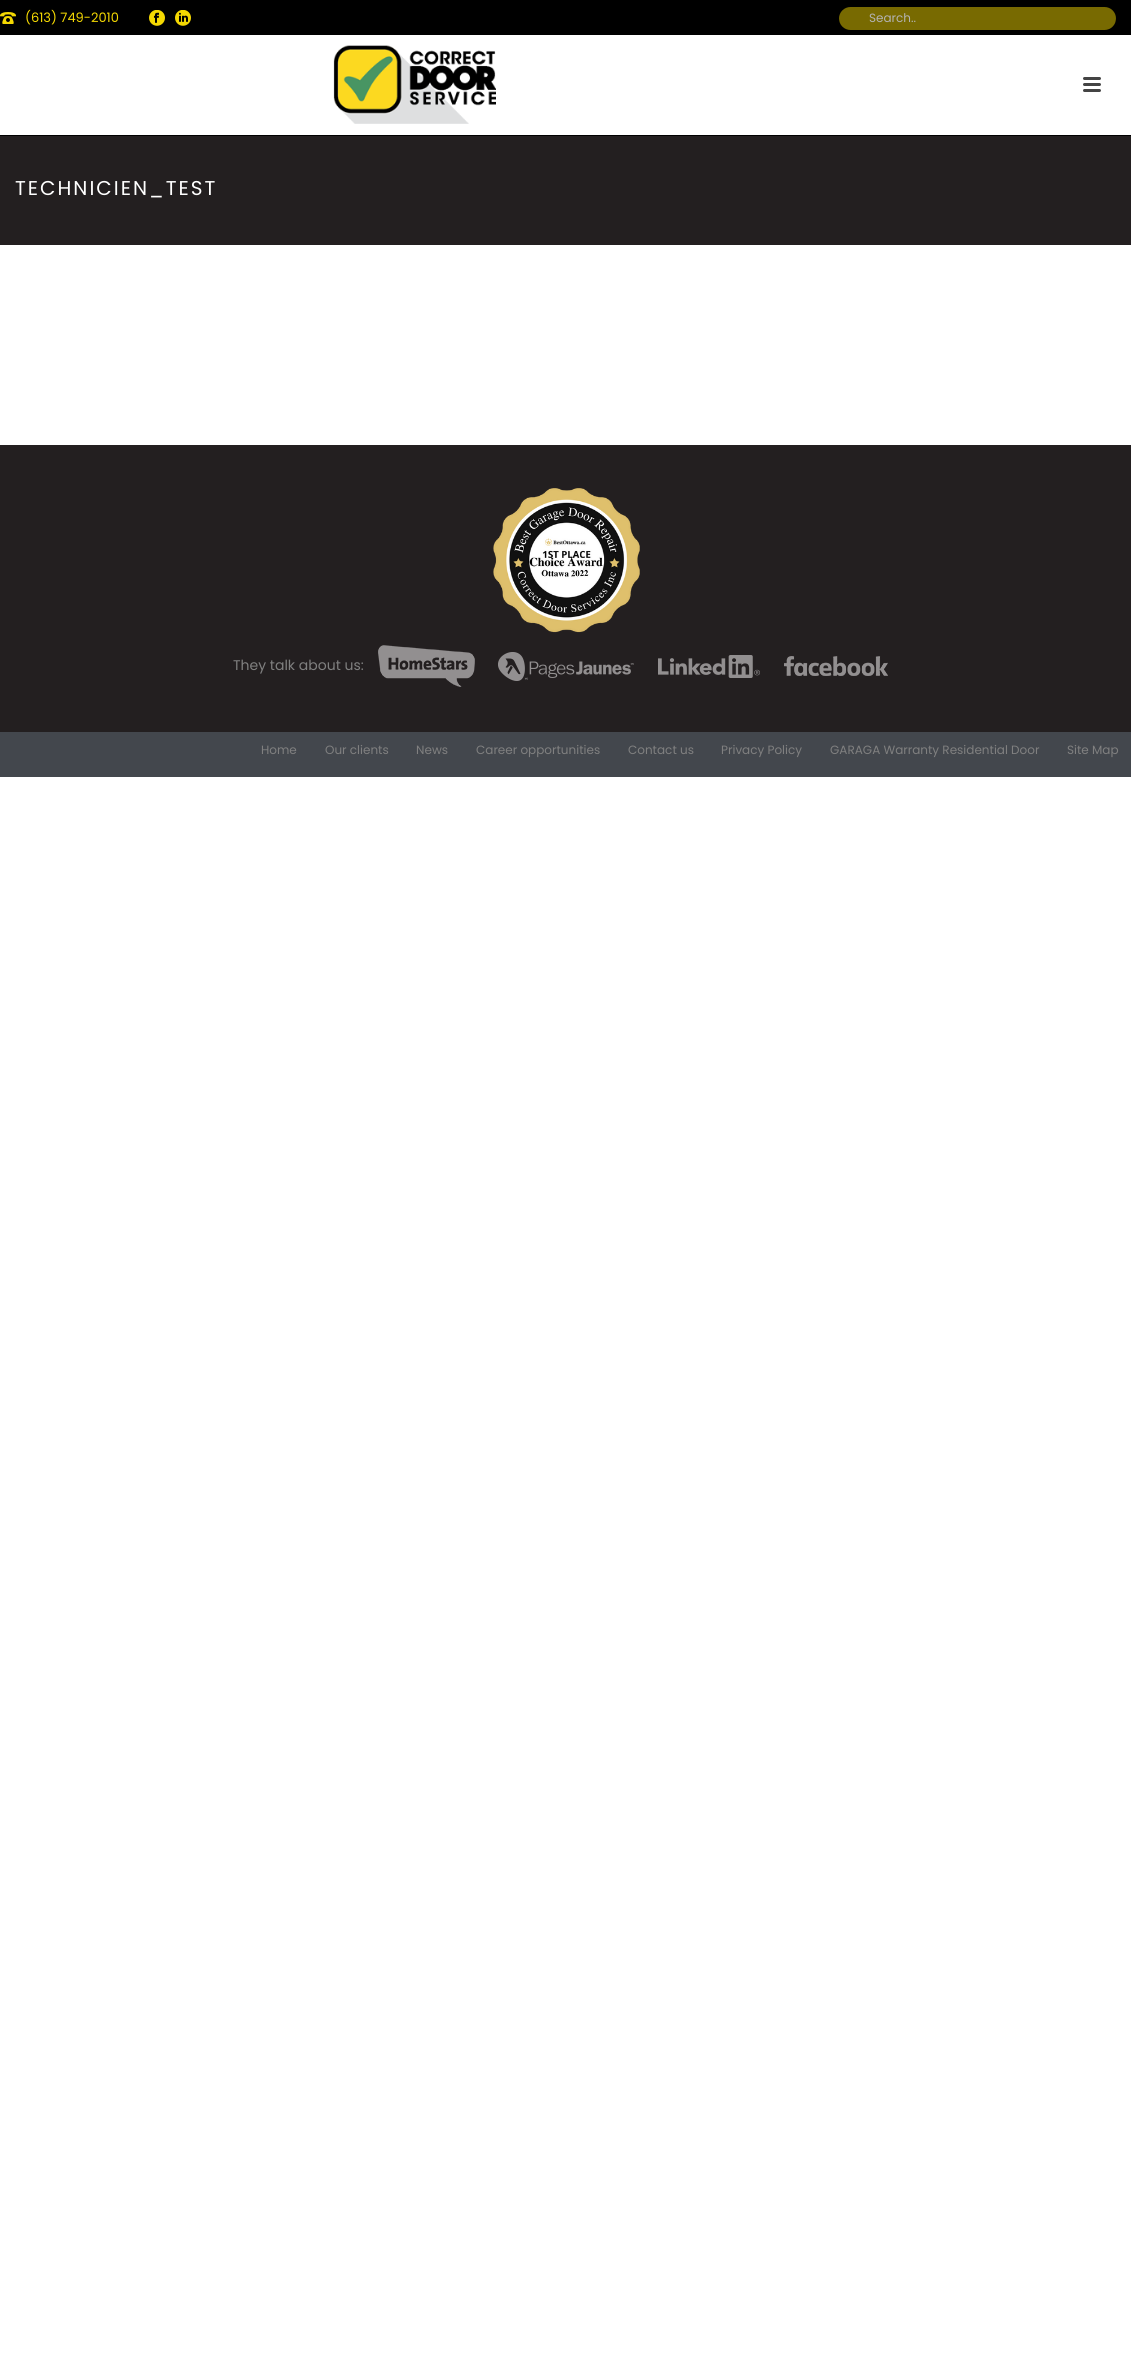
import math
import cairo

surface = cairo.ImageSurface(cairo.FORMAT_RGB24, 1131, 2357)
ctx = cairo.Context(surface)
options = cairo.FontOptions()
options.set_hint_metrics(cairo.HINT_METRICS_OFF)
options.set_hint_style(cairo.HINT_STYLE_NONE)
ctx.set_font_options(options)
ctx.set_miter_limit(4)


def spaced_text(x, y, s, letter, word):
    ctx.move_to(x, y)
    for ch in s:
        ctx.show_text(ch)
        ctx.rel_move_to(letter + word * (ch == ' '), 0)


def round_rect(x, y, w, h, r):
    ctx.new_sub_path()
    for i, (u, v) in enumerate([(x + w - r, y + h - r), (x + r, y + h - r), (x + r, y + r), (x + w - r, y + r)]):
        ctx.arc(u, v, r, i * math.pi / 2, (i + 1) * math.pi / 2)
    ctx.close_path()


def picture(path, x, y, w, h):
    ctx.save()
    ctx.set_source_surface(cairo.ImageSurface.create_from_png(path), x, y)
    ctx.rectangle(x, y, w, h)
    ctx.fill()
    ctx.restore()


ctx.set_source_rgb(1, 1, 1)
ctx.paint()
ctx.set_source_rgb(0.137, 0.122, 0.125)
ctx.rectangle(0, 136, 1131, 109)
ctx.fill()
ctx.set_source_rgb(0, 0, 0)
ctx.rectangle(0, 0, 1131, 35)
ctx.fill()
picture("img1.png", 0, 12, 16, 12)
ctx.select_font_face("Poppins")
ctx.set_font_size(13)
ctx.set_source_rgb(0.957, 0.847, 0.008)
ctx.move_to(25, 22)
ctx.show_text("(613) 749-2010")
picture("img2.png", 149, 10, 16, 16)
picture("img3.png", 175, 10, 16, 16)
ctx.save()
round_rect(839, 0, 277, 35, 17.5)
ctx.clip()
ctx.set_source_rgb(0.471, 0.416, 0.004)
round_rect(839, 7, 277, 23, 11.5)
ctx.fill()
ctx.restore()
ctx.set_font_size(12)
ctx.set_source_rgb(0.702, 0.702, 0.702)
ctx.move_to(869, 22)
ctx.show_text("Search..")
ctx.set_source_rgb(0, 0, 0)
ctx.rectangle(0, 135, 1131, 1)
ctx.fill()
picture("img4.png", 333, 45, 163, 79)
ctx.set_source_rgb(0.267, 0.267, 0.267)
round_rect(1083, 77, 18, 3, 1.5)
ctx.fill()
round_rect(1083, 83, 18, 3, 1.5)
ctx.fill()
round_rect(1083, 89, 18, 3, 1.5)
ctx.fill()
ctx.set_font_size(20)
ctx.set_source_rgb(1, 1, 1)
spaced_text(15, 195, "TECHNICIEN_TEST", 2, 0)
ctx.set_source_rgb(0.137, 0.122, 0.125)
ctx.rectangle(0, 445, 1131, 287)
ctx.fill()
picture("img5.png", 493, 488, 147, 145)
ctx.set_font_size(14)
ctx.set_source_rgb(0.502, 0.502, 0.502)
ctx.move_to(233, 670)
ctx.show_text("They talk about us:")
picture("img6.png", 378, 645, 97, 42)
picture("img7.png", 498, 652, 136, 29)
picture("img8.png", 658, 655, 102, 23)
picture("img9.png", 784, 656, 104, 20)
ctx.set_source_rgb(0.263, 0.278, 0.302)
ctx.rectangle(0, 732, 1131, 45)
ctx.fill()
ctx.set_font_size(12)
ctx.set_source_rgb(0.502, 0.502, 0.502)
ctx.move_to(261, 754)
ctx.show_text("Home")
ctx.move_to(325, 754)
ctx.show_text("Our clients")
ctx.move_to(416, 754)
ctx.show_text("News")
ctx.move_to(476, 754)
ctx.show_text("Career opportunities")
ctx.move_to(628, 754)
ctx.show_text("Contact us")
ctx.move_to(721, 754)
ctx.show_text("Privacy Policy")
ctx.move_to(830, 754)
ctx.show_text("GARAGA Warranty Residential Door")
ctx.move_to(1067, 754)
ctx.show_text("Site Map")
surface.write_to_png("page.png")
